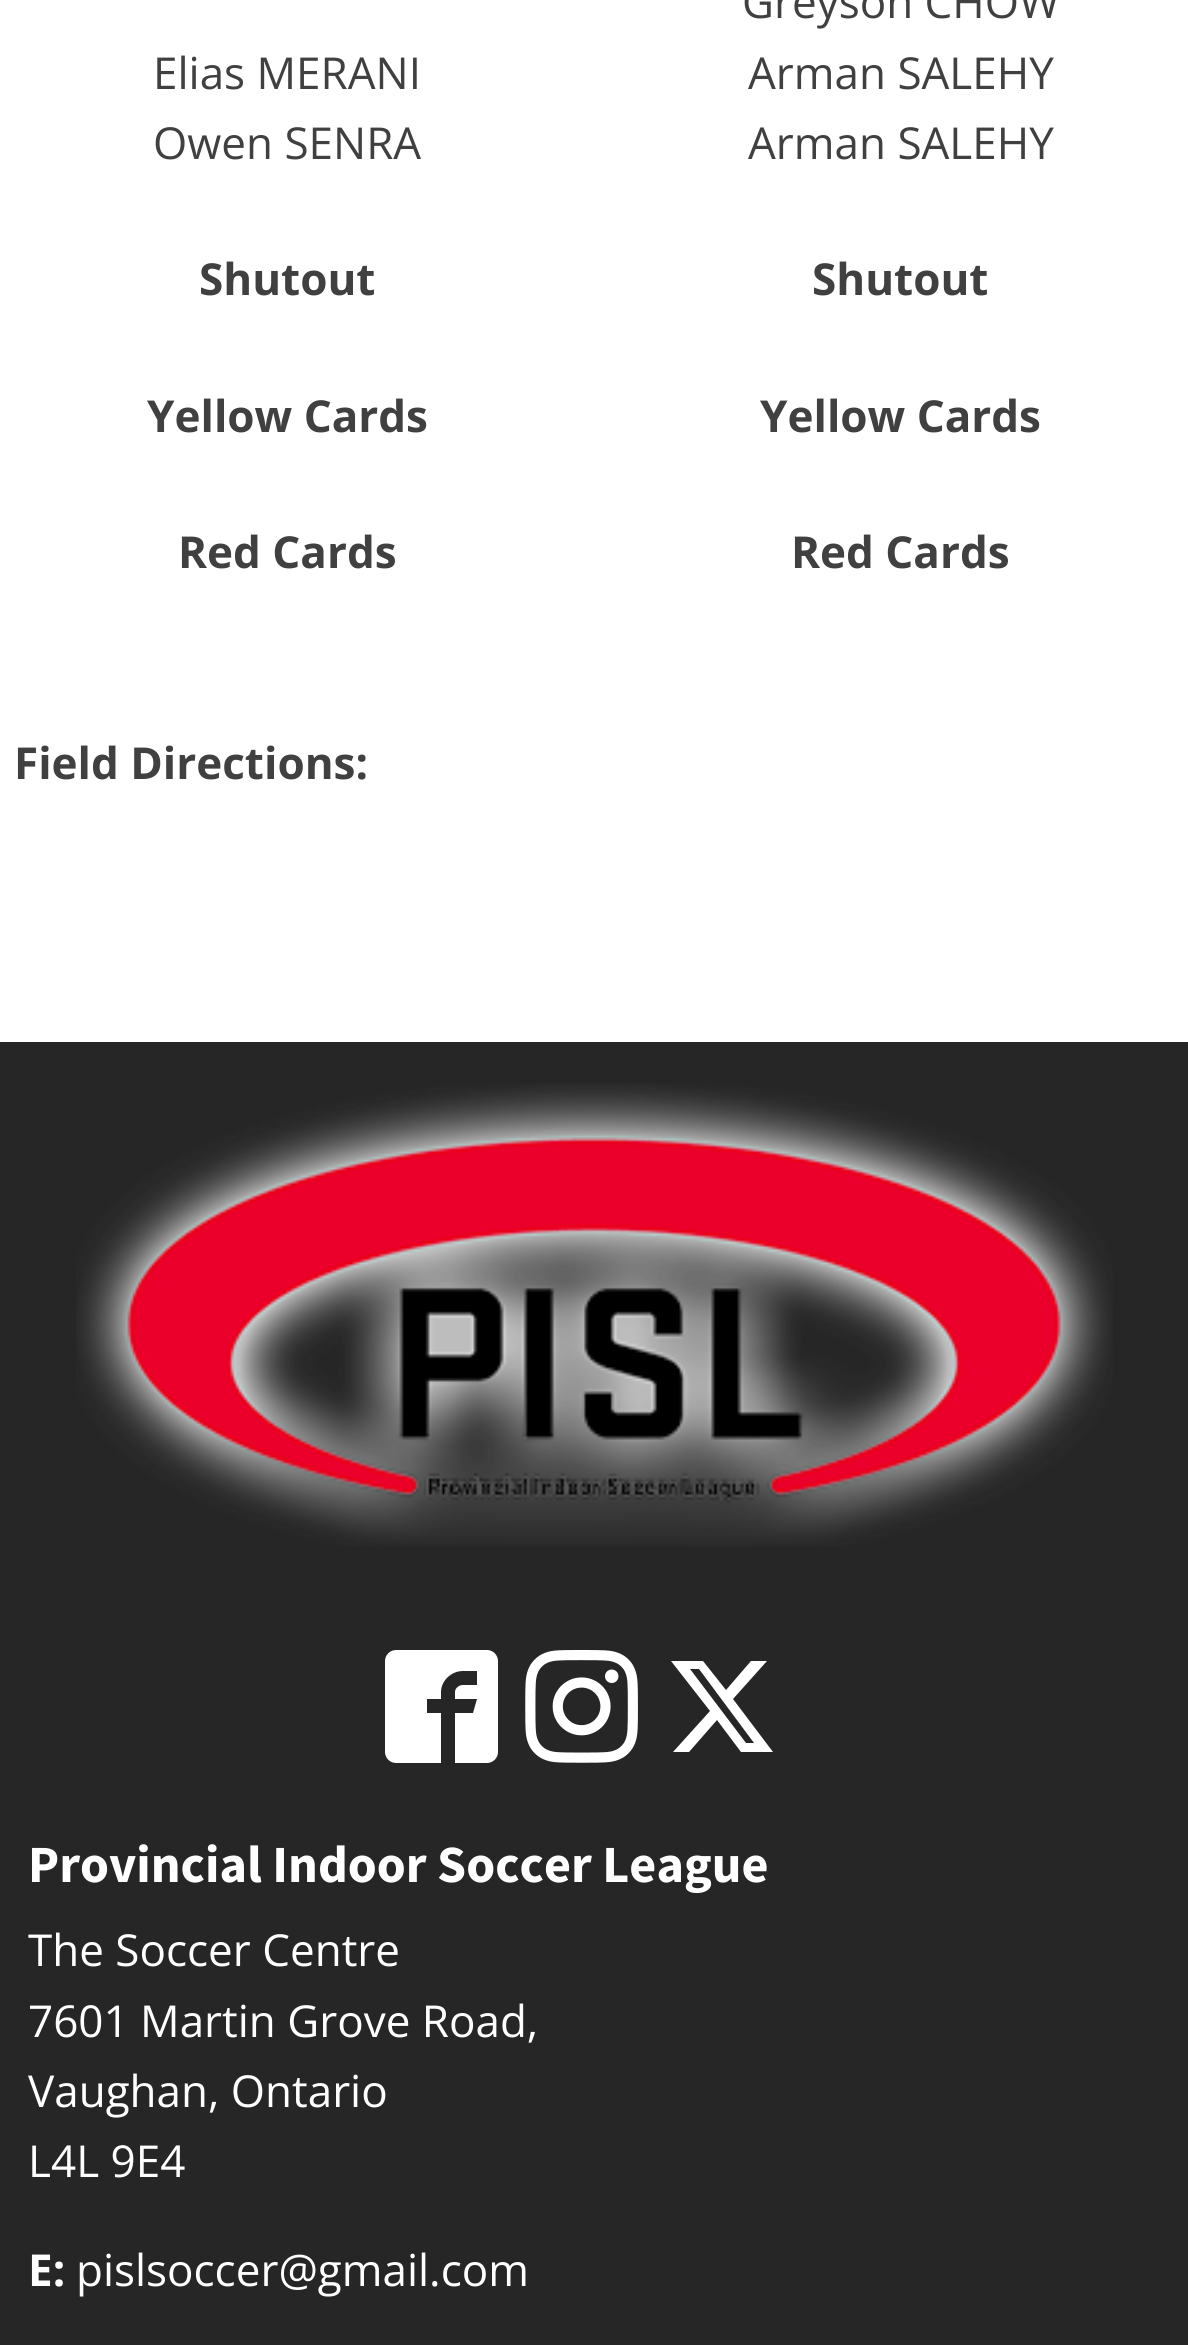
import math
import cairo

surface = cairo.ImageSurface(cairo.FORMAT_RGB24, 1188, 2345)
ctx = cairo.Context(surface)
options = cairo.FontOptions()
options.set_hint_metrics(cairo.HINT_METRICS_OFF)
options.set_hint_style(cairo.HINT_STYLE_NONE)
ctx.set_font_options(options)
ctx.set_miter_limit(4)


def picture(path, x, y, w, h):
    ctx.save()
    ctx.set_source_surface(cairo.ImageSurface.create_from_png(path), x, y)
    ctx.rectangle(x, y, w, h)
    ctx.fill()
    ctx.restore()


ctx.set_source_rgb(1, 1, 1)
ctx.paint()
ctx.select_font_face("Open Sans")
ctx.set_font_size(44)
ctx.set_source_rgb(0.251, 0.251, 0.251)
ctx.move_to(153, 89)
ctx.show_text("Elias MERANI")
ctx.move_to(153, 159)
ctx.show_text("Owen SENRA")
ctx.move_to(742, 18)
ctx.show_text("Greyson CHOW")
ctx.move_to(748, 89)
ctx.show_text("Arman SALEHY")
ctx.move_to(748, 159)
ctx.show_text("Arman SALEHY")
ctx.select_font_face("Open Sans", cairo.FONT_SLANT_NORMAL, cairo.FONT_WEIGHT_BOLD)
ctx.move_to(199, 295)
ctx.show_text("Shutout")
ctx.move_to(812, 295)
ctx.show_text("Shutout")
ctx.move_to(147, 432)
ctx.show_text("Yellow Cards")
ctx.move_to(760, 432)
ctx.show_text("Yellow Cards")
ctx.move_to(178, 568)
ctx.show_text("Red Cards")
ctx.move_to(791, 568)
ctx.show_text("Red Cards")
ctx.move_to(14, 779)
ctx.show_text("Field Directions:")
ctx.set_source_rgb(0.149, 0.149, 0.149)
ctx.rectangle(0, 1042, 1188, 1303)
ctx.fill()
picture("img1.png", 76, 1083, 1037, 464)
ctx.set_source_rgb(1, 1, 1)
ctx.new_path()
ctx.move_to(487, 1650)
ctx.line_to(396, 1650)
ctx.curve_to(390, 1650, 385, 1655, 385, 1661)
ctx.line_to(385, 1752)
ctx.curve_to(385, 1758, 390, 1763, 396, 1763)
ctx.line_to(441, 1763)
ctx.line_to(441, 1713)
ctx.line_to(427, 1713)
ctx.line_to(427, 1699)
ctx.line_to(441, 1699)
ctx.line_to(441, 1692)
ctx.curve_to(441, 1681, 451, 1671, 463, 1671)
ctx.line_to(477, 1671)
ctx.line_to(477, 1685)
ctx.line_to(463, 1685)
ctx.curve_to(459, 1685, 455, 1688, 455, 1692)
ctx.line_to(455, 1699)
ctx.line_to(477, 1699)
ctx.line_to(473, 1713)
ctx.line_to(455, 1713)
ctx.line_to(455, 1763)
ctx.line_to(487, 1763)
ctx.curve_to(493, 1763, 498, 1758, 498, 1752)
ctx.line_to(498, 1661)
ctx.curve_to(498, 1655, 493, 1650, 487, 1650)
ctx.close_path()
ctx.fill()
picture("img2.png", 525, 1650, 113, 113)
ctx.new_path()
ctx.move_to(751, 1661)
ctx.line_to(767, 1661)
ctx.line_to(733, 1699)
ctx.line_to(773, 1752)
ctx.line_to(741, 1752)
ctx.line_to(717, 1720)
ctx.line_to(689, 1752)
ctx.line_to(673, 1752)
ctx.line_to(710, 1711)
ctx.line_to(671, 1661)
ctx.line_to(703, 1661)
ctx.line_to(726, 1690)
ctx.close_path()
ctx.move_to(746, 1743)
ctx.line_to(754, 1743)
ctx.line_to(699, 1669)
ctx.line_to(690, 1669)
ctx.close_path()
ctx.fill()
ctx.select_font_face("Source Sans Pro", cairo.FONT_SLANT_NORMAL, cairo.FONT_WEIGHT_BOLD)
ctx.set_font_size(52.25)
ctx.move_to(28, 1882)
ctx.show_text("Provincial Indoor Soccer League")
ctx.select_font_face("Open Sans")
ctx.set_font_size(44)
ctx.move_to(28, 1966)
ctx.show_text("The Soccer Centre")
ctx.move_to(28, 2037)
ctx.show_text("7601 Martin Grove Road,")
ctx.move_to(28, 2107)
ctx.show_text("Vaughan, Ontario")
ctx.move_to(28, 2177)
ctx.show_text("L4L 9E4")
ctx.select_font_face("Open Sans", cairo.FONT_SLANT_NORMAL, cairo.FONT_WEIGHT_BOLD)
ctx.move_to(28, 2286)
ctx.show_text("E:")
ctx.select_font_face("Open Sans")
ctx.move_to(76, 2286)
ctx.show_text("pislsoccer@gmail.com")
surface.write_to_png("page.png")
